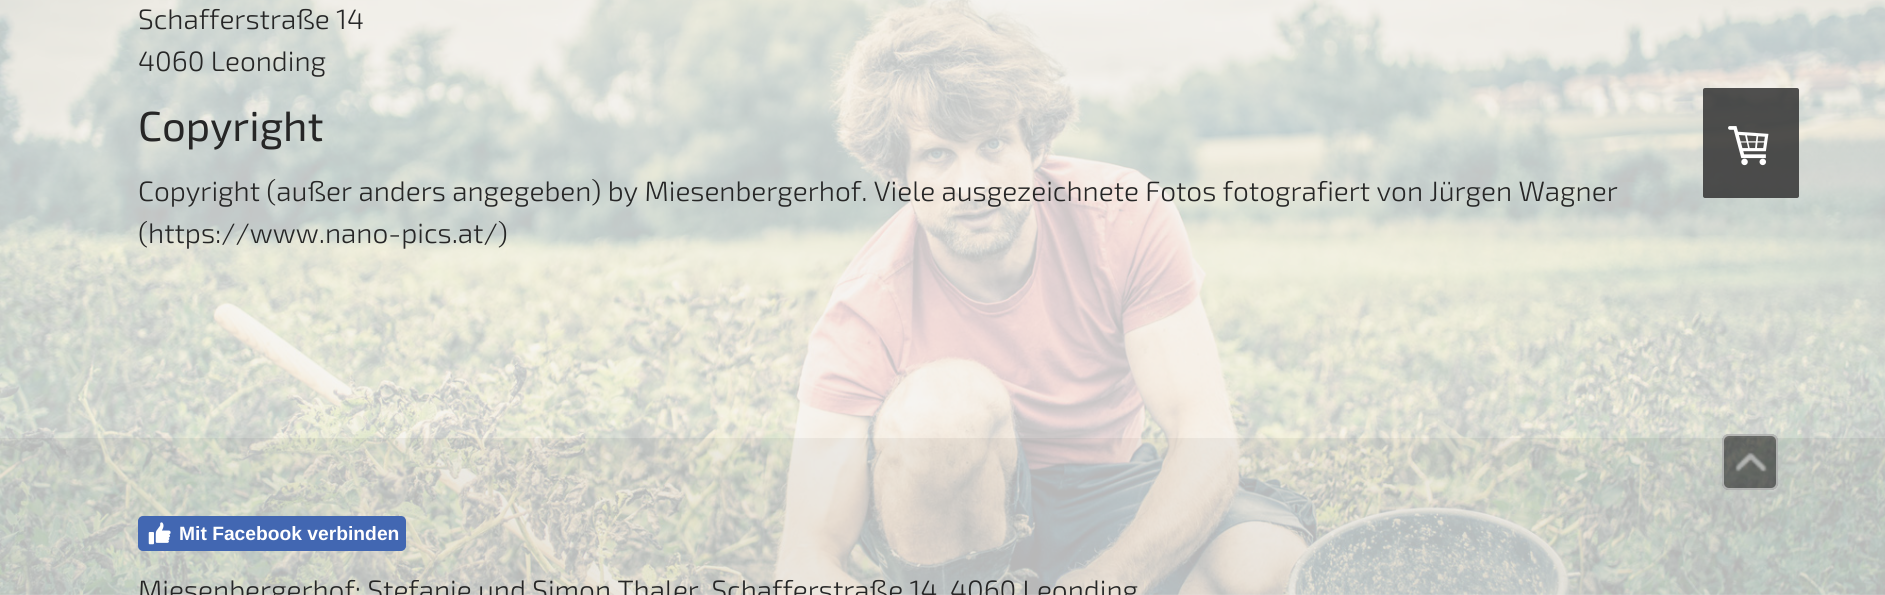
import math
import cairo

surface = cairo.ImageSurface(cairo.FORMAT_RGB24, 1885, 595)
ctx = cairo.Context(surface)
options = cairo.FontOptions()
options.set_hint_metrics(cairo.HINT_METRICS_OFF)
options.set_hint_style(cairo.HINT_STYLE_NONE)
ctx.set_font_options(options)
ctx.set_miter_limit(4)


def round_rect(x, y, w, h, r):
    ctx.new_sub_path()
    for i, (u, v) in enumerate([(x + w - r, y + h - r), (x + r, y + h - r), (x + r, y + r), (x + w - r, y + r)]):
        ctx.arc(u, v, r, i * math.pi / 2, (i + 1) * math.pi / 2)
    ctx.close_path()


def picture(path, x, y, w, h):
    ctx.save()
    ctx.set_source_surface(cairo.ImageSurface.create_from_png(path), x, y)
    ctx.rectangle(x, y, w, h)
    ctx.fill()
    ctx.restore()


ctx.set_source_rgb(1, 1, 1)
ctx.paint()
picture("img1.png", 0, 0, 1885, 595)
ctx.set_source_rgba(0.953, 0.953, 0.953, 0.8)
ctx.rectangle(0, 0, 1885, 438)
ctx.fill()
ctx.select_font_face("Exo 2 Light")
ctx.set_font_size(28)
ctx.set_source_rgb(0.149, 0.149, 0.149)
ctx.move_to(138, 29)
ctx.show_text("Schafferstraße 14")
ctx.move_to(138, 71)
ctx.show_text("4060 Leonding")
ctx.select_font_face("Exo 2")
ctx.set_font_size(42)
ctx.move_to(138, 141)
ctx.show_text("Copyright")
ctx.select_font_face("Exo 2 Light")
ctx.set_font_size(28)
ctx.move_to(138, 201)
ctx.show_text("Copyright (außer anders angegeben) by Miesenbergerhof. Viele ausgezeichnete Fotos fotografiert von Jürgen Wagner")
ctx.move_to(138, 243)
ctx.show_text("(https://www.nano-pics.at/)")
ctx.set_source_rgba(0.2, 0.2, 0.2, 0.85)
round_rect(1703, 88, 96, 110, 2)
ctx.fill()
picture("img2.png", 1728, 126, 41, 40)
ctx.set_source_rgba(0.902, 0.902, 0.902, 0.8)
ctx.rectangle(0, 438, 1885, 157)
ctx.fill()
ctx.set_source_rgb(0.259, 0.404, 0.698)
round_rect(139, 517, 266, 33, 4)
ctx.fill_preserve()
ctx.stroke()
picture("img3.png", 148, 522, 23, 23)
ctx.select_font_face("Liberation Sans", cairo.FONT_SLANT_NORMAL, cairo.FONT_WEIGHT_BOLD)
ctx.set_font_size(19.25)
ctx.set_source_rgb(1, 1, 1)
ctx.move_to(179, 540)
ctx.show_text("Mit Facebook verbinden")
ctx.select_font_face("Exo 2 Light")
ctx.set_font_size(28)
ctx.set_source_rgb(0.149, 0.149, 0.149)
ctx.move_to(138, 600)
ctx.show_text("Miesenbergerhof: Stefanie und Simon Thaler, Schafferstraße 14, 4060 Leonding")
ctx.set_source_rgba(0, 0, 0, 0.5)
round_rect(1722, 434, 56, 56, 7)
ctx.fill()
round_rect(1723, 435, 54, 54, 6)
ctx.set_source_rgba(1, 1, 1, 0.5)
ctx.stroke()
picture("img4.png", 1735, 452, 32, 20)
surface.write_to_png("page.png")
